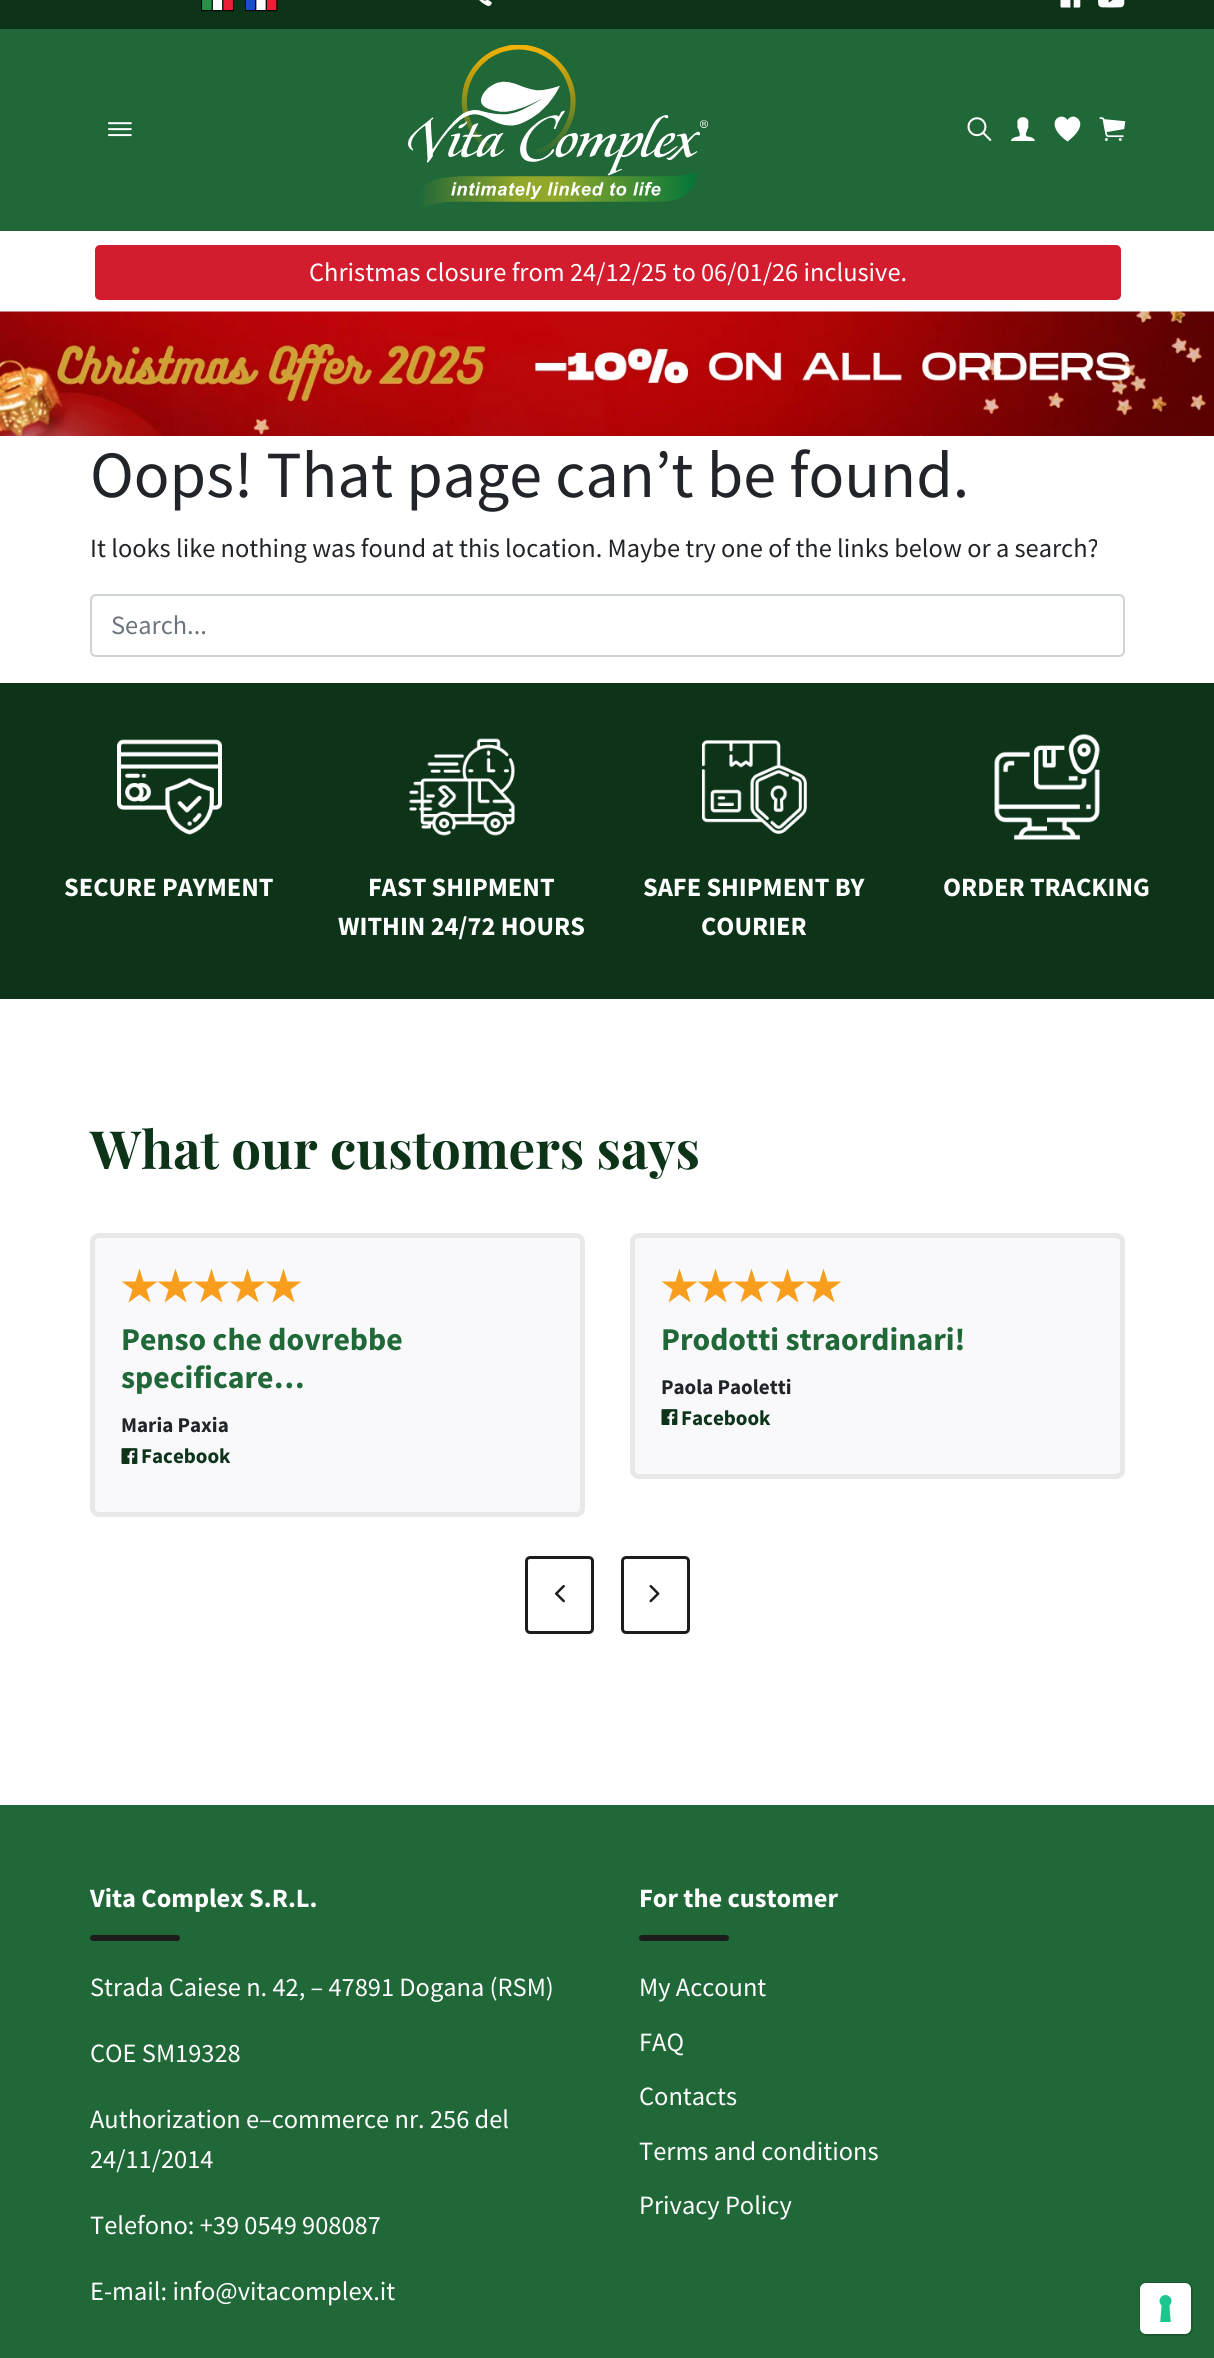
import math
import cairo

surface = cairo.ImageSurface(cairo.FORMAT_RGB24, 1214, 2358)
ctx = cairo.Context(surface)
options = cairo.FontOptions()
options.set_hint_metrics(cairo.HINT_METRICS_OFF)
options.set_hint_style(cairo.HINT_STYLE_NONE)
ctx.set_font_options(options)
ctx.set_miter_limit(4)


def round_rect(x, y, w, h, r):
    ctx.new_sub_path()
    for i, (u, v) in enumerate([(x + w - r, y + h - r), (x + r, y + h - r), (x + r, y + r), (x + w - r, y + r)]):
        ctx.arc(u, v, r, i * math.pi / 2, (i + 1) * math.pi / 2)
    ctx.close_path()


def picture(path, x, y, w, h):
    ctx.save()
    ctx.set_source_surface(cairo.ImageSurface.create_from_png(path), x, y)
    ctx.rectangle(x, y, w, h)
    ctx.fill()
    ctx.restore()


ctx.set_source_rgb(1, 1, 1)
ctx.paint()
ctx.set_source_rgb(0.125, 0.408, 0.22)
ctx.rectangle(0, 29, 1214, 202)
ctx.fill()
ctx.set_source_rgb(0.051, 0.204, 0.098)
ctx.rectangle(0, 0, 1214, 29)
ctx.fill()
picture("img1.png", 201, 0, 33, 12)
picture("img2.png", 245, 0, 33, 12)
picture("img3.png", 479, 0, 13, 6)
picture("img4.png", 1060, 0, 21, 8)
picture("img5.png", 1098, 0, 27, 8)
picture("img6.png", 108, 122, 24, 15)
picture("img7.png", 408, 45, 300, 163)
picture("img8.png", 967, 117, 25, 24)
picture("img9.png", 1011, 117, 24, 24)
ctx.set_source_rgb(1, 1, 1)
ctx.new_path()
ctx.move_to(1073.5, 116.5)
ctx.curve_to(1075.5, 117, 1078, 118, 1079, 120)
ctx.curve_to(1084, 127.5, 1073, 137.5, 1067.5, 141.5)
ctx.curve_to(1042, 123.5, 1061, 110, 1067.5, 120)
ctx.curve_to(1068.5, 118, 1071, 116.5, 1073.5, 116.5)
ctx.close_path()
ctx.fill()
picture("img10.png", 1099, 117, 27, 24)
ctx.set_source_rgb(0.827, 0.114, 0.184)
round_rect(95, 245, 1026, 55, 5)
ctx.fill()
ctx.select_font_face("Source Sans Pro")
ctx.set_font_size(26.4)
ctx.set_source_rgb(1, 1, 1)
ctx.move_to(309, 281)
ctx.show_text("Christmas closure from 24/12/25 to 06/01/26 inclusive.")
picture("img11.png", 0, 311, 1214, 125)
ctx.set_font_size(66)
ctx.set_source_rgb(0.129, 0.145, 0.161)
ctx.move_to(90, 497)
ctx.show_text("Oops! That page can’t be found.")
ctx.set_font_size(26.4)
ctx.move_to(90, 557)
ctx.show_text("It looks like nothing was found at this location. Maybe try one of the links below or a search?")
round_rect(91, 595, 1033, 61, 5)
ctx.set_source_rgb(0.808, 0.831, 0.855)
ctx.stroke()
ctx.set_source_rgb(0.424, 0.459, 0.49)
ctx.move_to(111, 634)
ctx.show_text("Search...")
ctx.set_source_rgb(0.051, 0.204, 0.098)
ctx.rectangle(0, 683, 1214, 316)
ctx.fill()
picture("img12.png", 117, 739, 105, 96)
ctx.select_font_face("Source Sans Pro", cairo.FONT_SLANT_NORMAL, cairo.FONT_WEIGHT_BOLD)
ctx.set_source_rgb(1, 1, 1)
ctx.move_to(64, 896)
ctx.show_text("SECURE PAYMENT")
picture("img13.png", 409, 738, 106, 98)
ctx.move_to(368, 896)
ctx.show_text("FAST SHIPMENT")
ctx.move_to(338, 935)
ctx.show_text("WITHIN 24/72 HOURS")
picture("img14.png", 702, 740, 105, 94)
ctx.move_to(643, 896)
ctx.show_text("SAFE SHIPMENT BY")
ctx.move_to(701, 935)
ctx.show_text("COURIER")
picture("img15.png", 994, 734, 106, 106)
ctx.move_to(943, 896)
ctx.show_text("ORDER TRACKING")
ctx.select_font_face("Playfair Display", cairo.FONT_SLANT_NORMAL, cairo.FONT_WEIGHT_BOLD)
ctx.set_font_size(52.75)
ctx.set_source_rgb(0.051, 0.204, 0.098)
ctx.move_to(90, 1169)
ctx.show_text("What our customers says")
ctx.set_source_rgb(0.973, 0.976, 0.984)
round_rect(92.5, 1235.5, 490, 279, 6.5)
ctx.fill_preserve()
ctx.set_source_rgb(0.91, 0.91, 0.91)
ctx.set_line_width(5)
ctx.stroke()
ctx.set_source_rgb(0.969, 0.62, 0.11)
ctx.new_path()
ctx.move_to(139.5, 1268.5)
ctx.line_to(143.5, 1281.5)
ctx.line_to(157.5, 1281.5)
ctx.line_to(146.5, 1289.5)
ctx.line_to(150.5, 1302.5)
ctx.line_to(139.5, 1294.5)
ctx.line_to(128.5, 1302.5)
ctx.line_to(132.5, 1289.5)
ctx.line_to(121.5, 1281.5)
ctx.line_to(135.5, 1281.5)
ctx.close_path()
ctx.fill()
ctx.new_path()
ctx.move_to(175.5, 1268.5)
ctx.line_to(179.5, 1281.5)
ctx.line_to(193.5, 1281.5)
ctx.line_to(182.5, 1289.5)
ctx.line_to(186.5, 1302.5)
ctx.line_to(175.5, 1294.5)
ctx.line_to(164.5, 1302.5)
ctx.line_to(168.5, 1289.5)
ctx.line_to(157.5, 1281.5)
ctx.line_to(171.5, 1281.5)
ctx.close_path()
ctx.fill()
ctx.new_path()
ctx.move_to(211.5, 1268.5)
ctx.line_to(215.5, 1281.5)
ctx.line_to(229.5, 1281.5)
ctx.line_to(218.5, 1289.5)
ctx.line_to(222.5, 1302.5)
ctx.line_to(211.5, 1294.5)
ctx.line_to(200.5, 1302.5)
ctx.line_to(204.5, 1289.5)
ctx.line_to(193.5, 1281.5)
ctx.line_to(207.5, 1281.5)
ctx.close_path()
ctx.fill()
ctx.new_path()
ctx.move_to(247.5, 1268.5)
ctx.line_to(251.5, 1281.5)
ctx.line_to(265.5, 1281.5)
ctx.line_to(254.5, 1289.5)
ctx.line_to(258.5, 1302.5)
ctx.line_to(247.5, 1294.5)
ctx.line_to(236.5, 1302.5)
ctx.line_to(240.5, 1289.5)
ctx.line_to(229.5, 1281.5)
ctx.line_to(243.5, 1281.5)
ctx.close_path()
ctx.fill()
ctx.new_path()
ctx.move_to(283.5, 1268.5)
ctx.line_to(287.5, 1281.5)
ctx.line_to(301.5, 1281.5)
ctx.line_to(290.5, 1289.5)
ctx.line_to(294.5, 1302.5)
ctx.line_to(283.5, 1294.5)
ctx.line_to(272.5, 1302.5)
ctx.line_to(276.5, 1289.5)
ctx.line_to(265.5, 1281.5)
ctx.line_to(279.5, 1281.5)
ctx.close_path()
ctx.fill()
ctx.select_font_face("Source Sans Pro", cairo.FONT_SLANT_NORMAL, cairo.FONT_WEIGHT_BOLD)
ctx.set_font_size(31.75)
ctx.set_source_rgb(0.125, 0.408, 0.22)
ctx.move_to(121, 1350)
ctx.show_text("Penso che dovrebbe")
ctx.move_to(121, 1388)
ctx.show_text("specificare…")
ctx.set_font_size(21)
ctx.set_source_rgb(0.129, 0.145, 0.161)
ctx.move_to(121, 1432)
ctx.show_text("Maria Paxia")
picture("img16.png", 121, 1448, 17, 16)
ctx.set_source_rgb(0.051, 0.204, 0.098)
ctx.move_to(141, 1463)
ctx.show_text("Facebook")
ctx.set_source_rgb(0.973, 0.976, 0.984)
round_rect(632.5, 1235.5, 490, 241, 6.5)
ctx.fill_preserve()
ctx.set_source_rgb(0.91, 0.91, 0.91)
ctx.stroke()
ctx.set_source_rgb(0.969, 0.62, 0.11)
ctx.new_path()
ctx.move_to(679.5, 1268.5)
ctx.line_to(683.5, 1281.5)
ctx.line_to(697.5, 1281.5)
ctx.line_to(686.5, 1289.5)
ctx.line_to(690.5, 1302.5)
ctx.line_to(679.5, 1294.5)
ctx.line_to(668.5, 1302.5)
ctx.line_to(672.5, 1289.5)
ctx.line_to(661.5, 1281.5)
ctx.line_to(675.5, 1281.5)
ctx.close_path()
ctx.fill()
ctx.new_path()
ctx.move_to(715.5, 1268.5)
ctx.line_to(719.5, 1281.5)
ctx.line_to(733.5, 1281.5)
ctx.line_to(722.5, 1289.5)
ctx.line_to(726.5, 1302.5)
ctx.line_to(715.5, 1294.5)
ctx.line_to(704.5, 1302.5)
ctx.line_to(708.5, 1289.5)
ctx.line_to(697.5, 1281.5)
ctx.line_to(711.5, 1281.5)
ctx.close_path()
ctx.fill()
ctx.new_path()
ctx.move_to(751.5, 1268.5)
ctx.line_to(755.5, 1281.5)
ctx.line_to(769.5, 1281.5)
ctx.line_to(758.5, 1289.5)
ctx.line_to(762.5, 1302.5)
ctx.line_to(751.5, 1294.5)
ctx.line_to(740.5, 1302.5)
ctx.line_to(744.5, 1289.5)
ctx.line_to(733.5, 1281.5)
ctx.line_to(747.5, 1281.5)
ctx.close_path()
ctx.fill()
ctx.new_path()
ctx.move_to(787.5, 1268.5)
ctx.line_to(791.5, 1281.5)
ctx.line_to(805.5, 1281.5)
ctx.line_to(794.5, 1289.5)
ctx.line_to(798.5, 1302.5)
ctx.line_to(787.5, 1294.5)
ctx.line_to(776.5, 1302.5)
ctx.line_to(780.5, 1289.5)
ctx.line_to(769.5, 1281.5)
ctx.line_to(783.5, 1281.5)
ctx.close_path()
ctx.fill()
ctx.new_path()
ctx.move_to(823.5, 1268.5)
ctx.line_to(827.5, 1281.5)
ctx.line_to(841.5, 1281.5)
ctx.line_to(830.5, 1289.5)
ctx.line_to(834.5, 1302.5)
ctx.line_to(823.5, 1294.5)
ctx.line_to(812.5, 1302.5)
ctx.line_to(816.5, 1289.5)
ctx.line_to(805.5, 1281.5)
ctx.line_to(819.5, 1281.5)
ctx.close_path()
ctx.fill()
ctx.set_font_size(31.75)
ctx.set_source_rgb(0.125, 0.408, 0.22)
ctx.move_to(661, 1350)
ctx.show_text("Prodotti straordinari!")
ctx.set_font_size(21)
ctx.set_source_rgb(0.129, 0.145, 0.161)
ctx.move_to(661, 1394)
ctx.show_text("Paola Paoletti")
picture("img16.png", 661, 1409, 17, 16)
ctx.set_source_rgb(0.051, 0.204, 0.098)
ctx.move_to(681, 1425)
ctx.show_text("Facebook")
round_rect(526.5, 1557.5, 66, 75, 3.5)
ctx.set_source_rgb(0.11, 0.11, 0.11)
ctx.set_line_width(3)
ctx.stroke()
picture("img17.png", 554, 1584, 11, 19)
round_rect(622.5, 1557.5, 66, 75, 3.5)
ctx.stroke()
picture("img18.png", 649, 1584, 11, 19)
ctx.set_source_rgb(0.125, 0.408, 0.22)
ctx.rectangle(0, 1805, 1214, 553)
ctx.fill()
ctx.set_font_size(26.4)
ctx.set_source_rgb(1, 1, 1)
ctx.move_to(90, 1907)
ctx.show_text("Vita Complex S.R.L.")
ctx.set_source_rgb(0.11, 0.11, 0.11)
round_rect(90, 1935, 90, 6, 3)
ctx.fill()
ctx.select_font_face("Source Sans Pro")
ctx.set_source_rgb(1, 1, 1)
ctx.move_to(90, 1996)
ctx.show_text("Strada Caiese n. 42, – 47891 Dogana (RSM)")
ctx.move_to(90, 2062)
ctx.show_text("COE SM19328")
ctx.move_to(90, 2128)
ctx.show_text("Authorization e–commerce nr. 256 del")
ctx.move_to(90, 2168)
ctx.show_text("24/11/2014")
ctx.move_to(90, 2234)
ctx.show_text("Telefono: +39 0549 908087")
ctx.move_to(90, 2300)
ctx.show_text("E-mail: info@vitacomplex.it")
ctx.select_font_face("Source Sans Pro", cairo.FONT_SLANT_NORMAL, cairo.FONT_WEIGHT_BOLD)
ctx.move_to(639, 1907)
ctx.show_text("For the customer")
ctx.set_source_rgb(0.11, 0.11, 0.11)
round_rect(639, 1935, 90, 6, 3)
ctx.fill()
ctx.select_font_face("Source Sans Pro")
ctx.set_source_rgb(1, 1, 1)
ctx.move_to(639, 1996)
ctx.show_text("My Account")
ctx.move_to(639, 2051)
ctx.show_text("FAQ")
ctx.move_to(639, 2105)
ctx.show_text("Contacts")
ctx.move_to(639, 2160)
ctx.show_text("Terms and conditions")
ctx.move_to(639, 2214)
ctx.show_text("Privacy Policy")
round_rect(1140, 2283, 52, 52, 7)
ctx.set_source_rgb(0.106, 0.345, 0.188)
ctx.set_line_width(2)
ctx.stroke()
ctx.set_source_rgb(1, 1, 1)
round_rect(1140, 2283, 51, 51, 6)
ctx.fill()
picture("img19.png", 1159, 2295, 13, 27)
surface.write_to_png("page.png")
